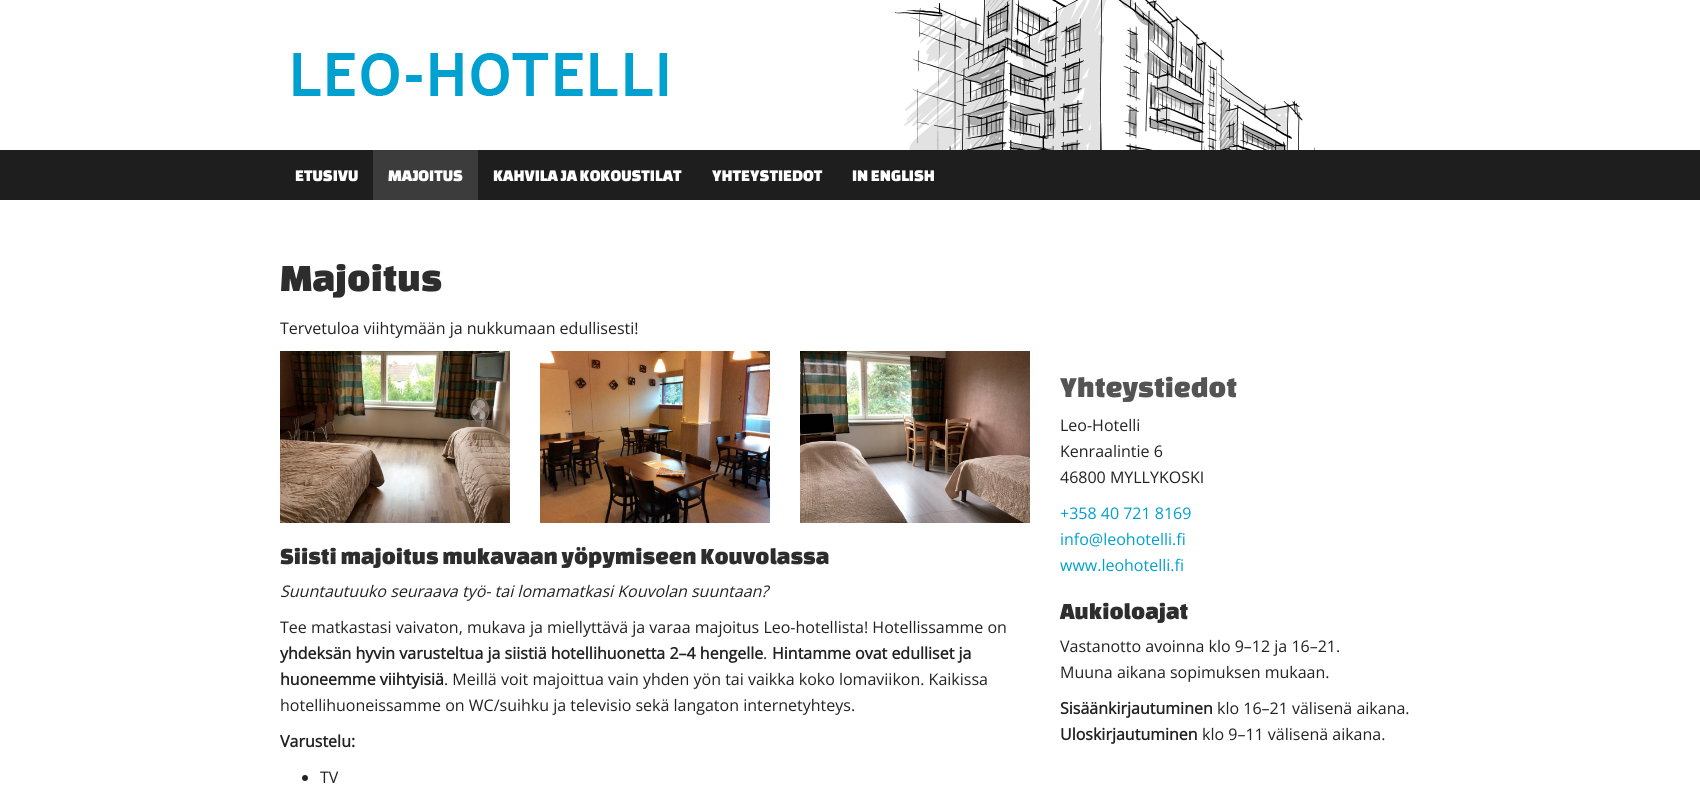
import math
import cairo

surface = cairo.ImageSurface(cairo.FORMAT_RGB24, 1700, 799)
ctx = cairo.Context(surface)
options = cairo.FontOptions()
options.set_hint_metrics(cairo.HINT_METRICS_OFF)
options.set_hint_style(cairo.HINT_STYLE_NONE)
ctx.set_font_options(options)
ctx.set_miter_limit(4)


def picture(path, x, y, w, h):
    ctx.save()
    ctx.set_source_surface(cairo.ImageSurface.create_from_png(path), x, y)
    ctx.rectangle(x, y, w, h)
    ctx.fill()
    ctx.restore()


ctx.set_source_rgb(1, 1, 1)
ctx.paint()
picture("img1.png", 895, 0, 420, 150)
picture("img2.png", 293, 53, 375, 43)
ctx.set_source_rgb(0.118, 0.118, 0.118)
ctx.rectangle(0, 150, 1700, 50)
ctx.fill()
ctx.select_font_face("Changa One")
ctx.set_font_size(17)
ctx.set_source_rgb(1, 1, 1)
ctx.move_to(295, 181)
ctx.show_text("ETUSIVU")
ctx.set_source_rgb(0.235, 0.235, 0.235)
ctx.rectangle(373, 150, 105, 50)
ctx.fill()
ctx.set_source_rgb(1, 1, 1)
ctx.move_to(388, 181)
ctx.show_text("MAJOITUS")
ctx.move_to(493, 181)
ctx.show_text("KAHVILA JA KOKOUSTILAT")
ctx.move_to(712, 181)
ctx.show_text("YHTEYSTIEDOT")
ctx.move_to(852, 181)
ctx.show_text("IN ENGLISH")
ctx.set_font_size(40)
ctx.set_source_rgb(0.176, 0.176, 0.176)
ctx.move_to(280, 291)
ctx.show_text("Majoitus")
ctx.select_font_face("Open Sans")
ctx.set_font_size(16)
ctx.set_source_rgb(0.133, 0.133, 0.133)
ctx.move_to(280, 334)
ctx.show_text("Tervetuloa viihtymään ja nukkumaan edullisesti!")
picture("img3.png", 280, 351, 230, 172)
picture("img4.png", 540, 351, 230, 172)
picture("img5.png", 800, 351, 230, 172)
ctx.select_font_face("Changa One")
ctx.set_font_size(24)
ctx.set_source_rgb(0.176, 0.176, 0.176)
ctx.move_to(280, 564)
ctx.show_text("Siisti majoitus mukavaan yöpymiseen Kouvolassa")
ctx.select_font_face("Open Sans", cairo.FONT_SLANT_ITALIC)
ctx.set_font_size(16)
ctx.set_source_rgb(0.133, 0.133, 0.133)
ctx.move_to(280, 597)
ctx.show_text("Suuntautuuko seuraava työ- tai lomamatkasi Kouvolan suuntaan?")
ctx.select_font_face("Open Sans")
ctx.move_to(280, 633)
ctx.show_text("Tee matkastasi vaivaton, mukava ja miellyttävä ja varaa majoitus Leo-hotellista! Hotellissamme on")
ctx.select_font_face("Open Sans", cairo.FONT_SLANT_NORMAL, cairo.FONT_WEIGHT_BOLD)
ctx.move_to(280, 659)
ctx.show_text("yhdeksän hyvin varusteltua ja siistiä hotellihuonetta 2–4 hengelle")
ctx.select_font_face("Open Sans")
ctx.move_to(763, 659)
ctx.show_text(".")
ctx.select_font_face("Open Sans", cairo.FONT_SLANT_NORMAL, cairo.FONT_WEIGHT_BOLD)
ctx.move_to(772, 659)
ctx.show_text("Hintamme ovat edulliset ja")
ctx.move_to(280, 685)
ctx.show_text("huoneemme viihtyisiä")
ctx.select_font_face("Open Sans")
ctx.move_to(444, 685)
ctx.show_text(". Meillä voit majoittua vain yhden yön tai vaikka koko lomaviikon. Kaikissa")
ctx.move_to(280, 711)
ctx.show_text("hotellihuoneissamme on WC/suihku ja televisio sekä langaton internetyhteys.")
ctx.select_font_face("Open Sans", cairo.FONT_SLANT_NORMAL, cairo.FONT_WEIGHT_BOLD)
ctx.move_to(280, 747)
ctx.show_text("Varustelu:")
ctx.new_path()
ctx.arc(305, 778, 3, 0, 2 * math.pi)
ctx.fill()
ctx.select_font_face("Open Sans")
ctx.move_to(320, 783)
ctx.show_text("TV")
ctx.select_font_face("Changa One")
ctx.set_font_size(30)
ctx.set_source_rgb(0.329, 0.329, 0.329)
ctx.move_to(1060, 397)
ctx.show_text("Yhteystiedot")
ctx.select_font_face("Open Sans")
ctx.set_font_size(16)
ctx.set_source_rgb(0.133, 0.133, 0.133)
ctx.move_to(1060, 431)
ctx.show_text("Leo-Hotelli")
ctx.move_to(1060, 457)
ctx.show_text("Kenraalintie 6")
ctx.move_to(1060, 483)
ctx.show_text("46800 MYLLYKOSKI")
ctx.set_source_rgb(0, 0.627, 0.808)
ctx.move_to(1060, 519)
ctx.show_text("+358 40 721 8169")
ctx.move_to(1060, 545)
ctx.show_text("info@leohotelli.fi")
ctx.move_to(1060, 571)
ctx.show_text("www.leohotelli.fi")
ctx.select_font_face("Changa One")
ctx.set_font_size(24)
ctx.set_source_rgb(0.176, 0.176, 0.176)
ctx.move_to(1060, 619)
ctx.show_text("Aukioloajat")
ctx.select_font_face("Open Sans")
ctx.set_font_size(16)
ctx.set_source_rgb(0.133, 0.133, 0.133)
ctx.move_to(1060, 652)
ctx.show_text("Vastanotto avoinna klo 9–12 ja 16–21.")
ctx.move_to(1060, 678)
ctx.show_text("Muuna aikana sopimuksen mukaan.")
ctx.select_font_face("Open Sans", cairo.FONT_SLANT_NORMAL, cairo.FONT_WEIGHT_BOLD)
ctx.move_to(1060, 714)
ctx.show_text("Sisäänkirjautuminen")
ctx.select_font_face("Open Sans")
ctx.move_to(1217, 714)
ctx.show_text("klo 16–21 välisenä aikana.")
ctx.select_font_face("Open Sans", cairo.FONT_SLANT_NORMAL, cairo.FONT_WEIGHT_BOLD)
ctx.move_to(1060, 740)
ctx.show_text("Uloskirjautuminen")
ctx.select_font_face("Open Sans")
ctx.move_to(1202, 740)
ctx.show_text("klo 9–11 välisenä aikana.")
surface.write_to_png("page.png")
